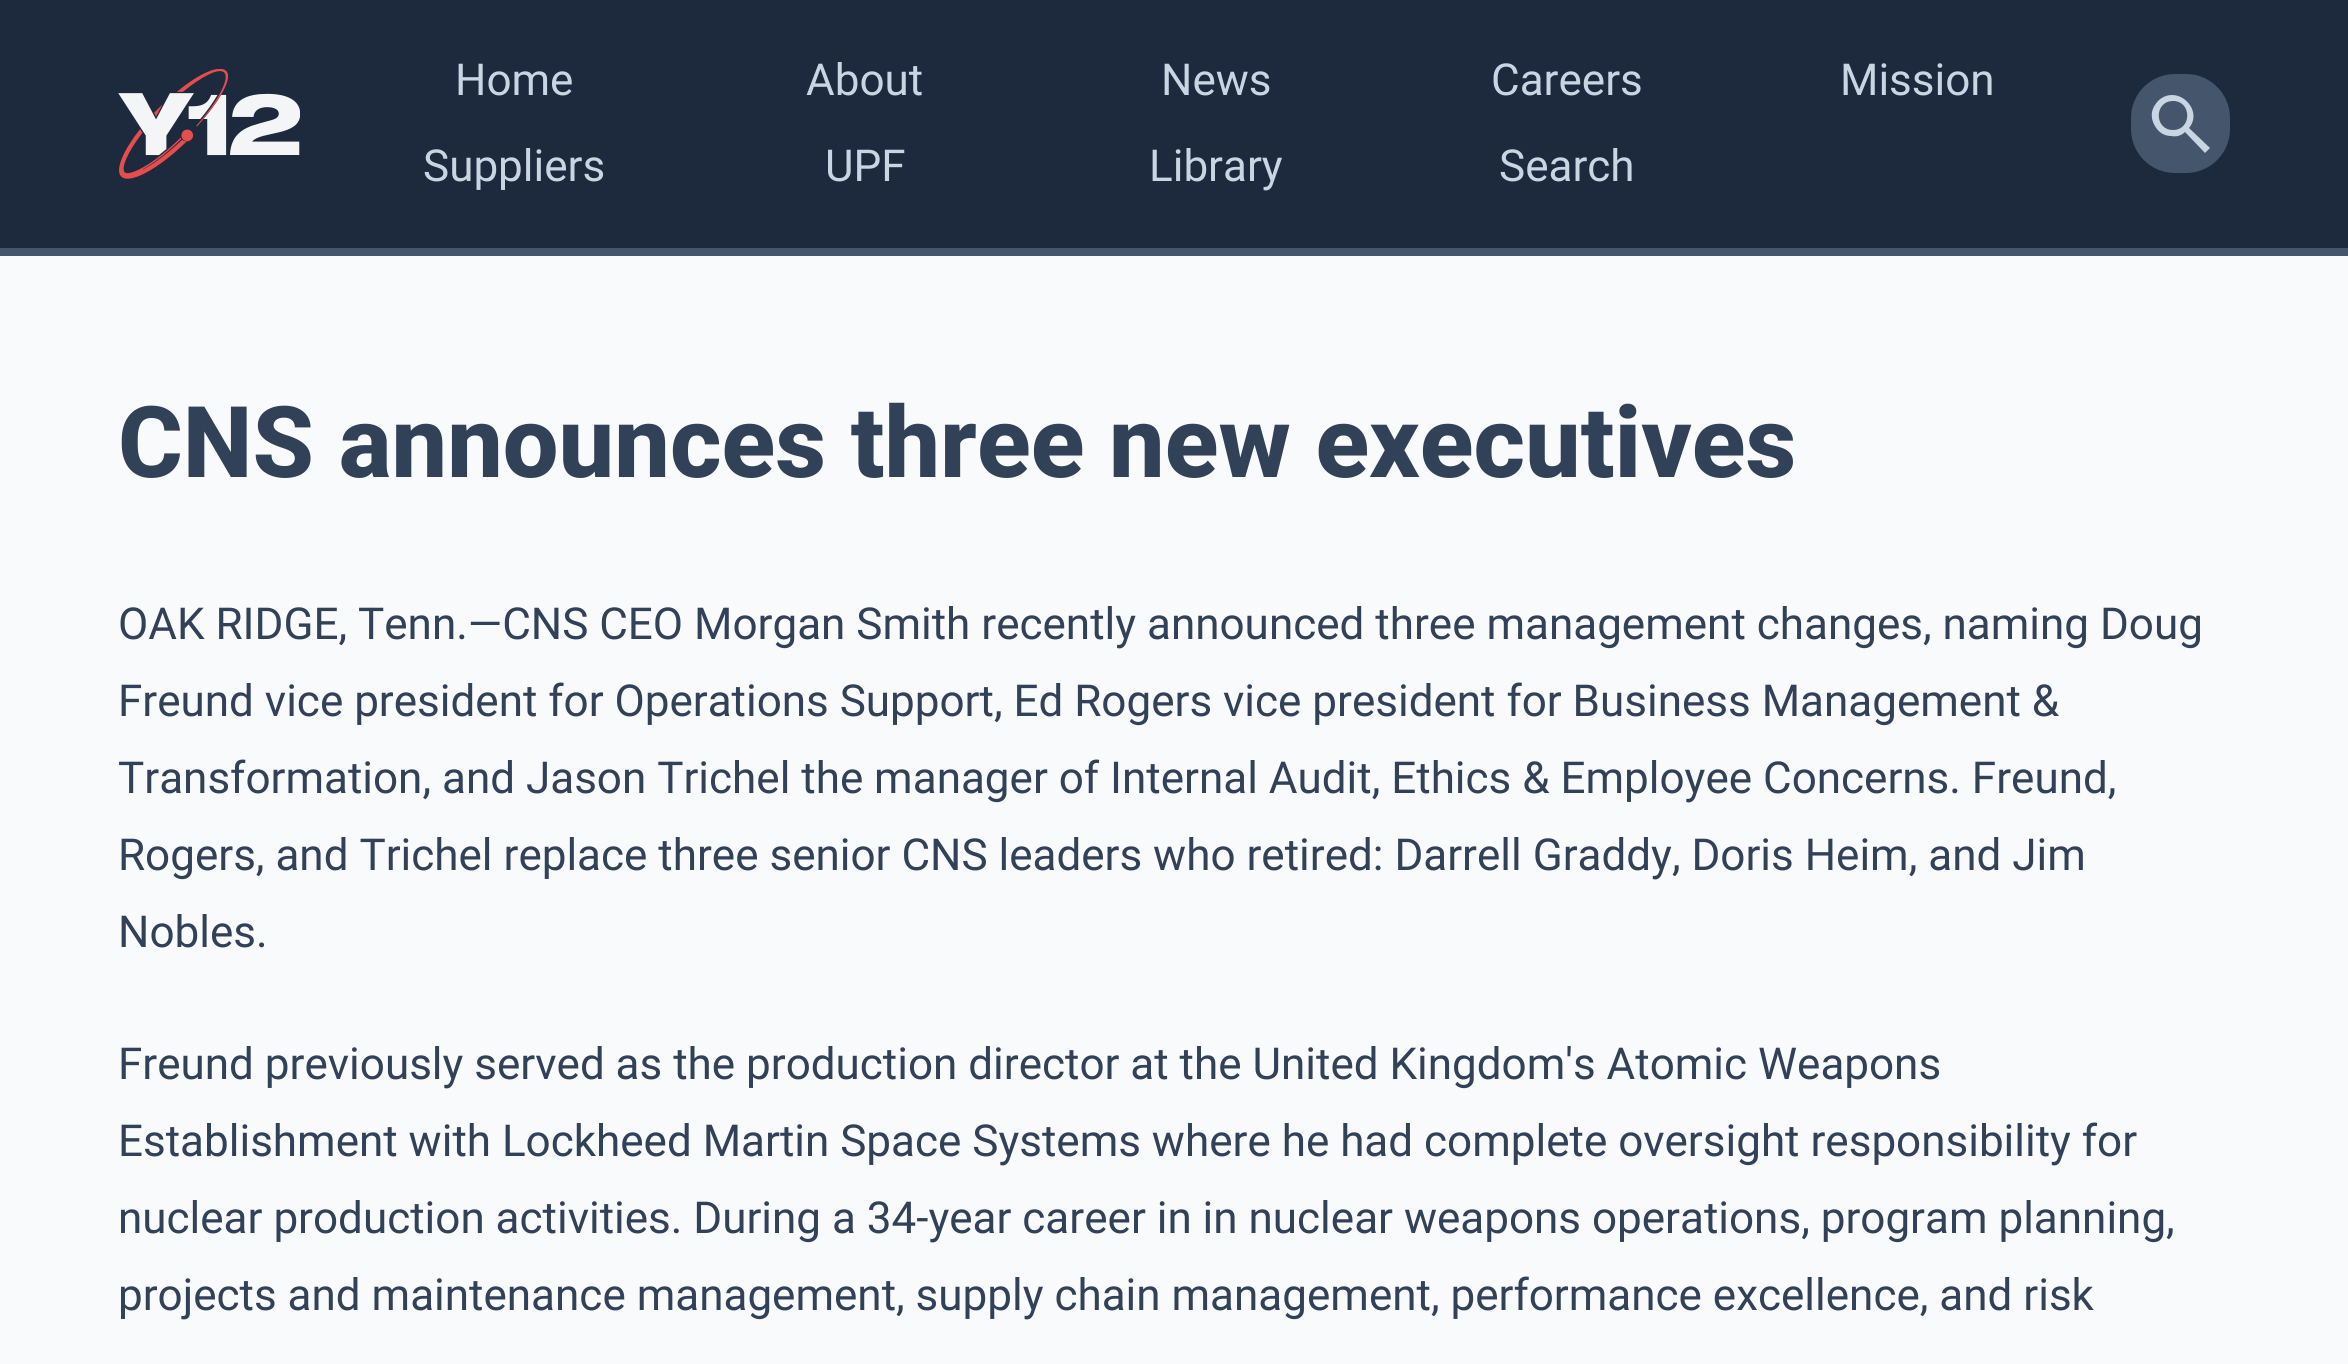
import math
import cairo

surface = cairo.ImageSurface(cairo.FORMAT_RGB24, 2348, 1364)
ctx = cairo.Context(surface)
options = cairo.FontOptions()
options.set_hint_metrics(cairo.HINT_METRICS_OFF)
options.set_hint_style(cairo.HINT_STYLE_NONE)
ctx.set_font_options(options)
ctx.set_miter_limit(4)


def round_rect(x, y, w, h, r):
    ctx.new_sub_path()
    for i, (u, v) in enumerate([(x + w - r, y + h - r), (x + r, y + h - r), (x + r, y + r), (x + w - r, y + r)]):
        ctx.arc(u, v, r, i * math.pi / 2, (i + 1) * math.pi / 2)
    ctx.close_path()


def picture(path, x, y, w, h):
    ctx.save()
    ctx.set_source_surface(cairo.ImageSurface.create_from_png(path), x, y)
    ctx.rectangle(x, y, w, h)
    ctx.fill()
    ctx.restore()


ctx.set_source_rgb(0.973, 0.98, 0.988)
ctx.paint()
ctx.set_source_rgb(0.114, 0.161, 0.239)
ctx.rectangle(0, 0, 2348, 248)
ctx.fill()
ctx.set_source_rgb(0.271, 0.333, 0.424)
ctx.rectangle(0, 248, 2348, 8)
ctx.fill()
picture("img1.png", 118, 69, 182, 110)
ctx.select_font_face("Roboto")
ctx.set_font_size(44)
ctx.set_source_rgb(0.792, 0.835, 0.886)
ctx.move_to(455, 95)
ctx.show_text("Home")
ctx.move_to(806, 95)
ctx.show_text("About")
ctx.move_to(1161, 95)
ctx.show_text("News")
ctx.move_to(1491, 95)
ctx.show_text("Careers")
ctx.move_to(1840, 95)
ctx.show_text("Mission")
ctx.move_to(423, 181)
ctx.show_text("Suppliers")
ctx.move_to(825, 181)
ctx.show_text("UPF")
ctx.move_to(1149, 181)
ctx.show_text("Library")
ctx.move_to(1499, 181)
ctx.show_text("Search")
ctx.set_source_rgb(0.271, 0.333, 0.424)
round_rect(2131, 74, 99, 99, 44)
ctx.fill()
ctx.set_source_rgb(0.792, 0.835, 0.886)
ctx.new_path()
ctx.move_to(2205, 153)
ctx.line_to(2185, 132)
ctx.curve_to(2181, 136, 2176, 137, 2171, 136)
ctx.curve_to(2165, 136, 2160, 133, 2157, 129)
ctx.curve_to(2153, 124, 2151, 118, 2152, 112)
ctx.curve_to(2153, 107, 2156, 103, 2159, 100)
ctx.curve_to(2178, 84, 2204, 110, 2189, 128)
ctx.line_to(2210, 148)
ctx.close_path()
ctx.move_to(2173, 130)
ctx.curve_to(2192, 130, 2192, 101, 2173, 101)
ctx.curve_to(2154, 101, 2154, 130, 2173, 130)
ctx.close_path()
ctx.fill()
ctx.select_font_face("Roboto ExtraBold")
ctx.set_font_size(99)
ctx.set_source_rgb(0.192, 0.255, 0.345)
ctx.move_to(118, 477)
ctx.show_text("CNS announces three new executives")
ctx.select_font_face("Roboto")
ctx.set_font_size(44)
ctx.move_to(118, 639)
ctx.show_text("OAK RIDGE, Tenn.—CNS CEO Morgan Smith recently announced three management changes, naming Doug")
ctx.move_to(118, 716)
ctx.show_text("Freund vice president for Operations Support, Ed Rogers vice president for Business Management &")
ctx.move_to(118, 793)
ctx.show_text("Transformation, and Jason Trichel the manager of Internal Audit, Ethics & Employee Concerns. Freund,")
ctx.move_to(118, 870)
ctx.show_text("Rogers, and Trichel replace three senior CNS leaders who retired: Darrell Graddy, Doris Heim, and Jim")
ctx.move_to(118, 947)
ctx.show_text("Nobles.")
ctx.move_to(118, 1079)
ctx.show_text("Freund previously served as the production director at the United Kingdom's Atomic Weapons")
ctx.move_to(118, 1156)
ctx.show_text("Establishment with Lockheed Martin Space Systems where he had complete oversight responsibility for")
ctx.move_to(118, 1233)
ctx.show_text("nuclear production activities. During a 34-year career in in nuclear weapons operations, program planning,")
ctx.move_to(118, 1310)
ctx.show_text("projects and maintenance management, supply chain management, performance excellence, and risk")
surface.write_to_png("page.png")
